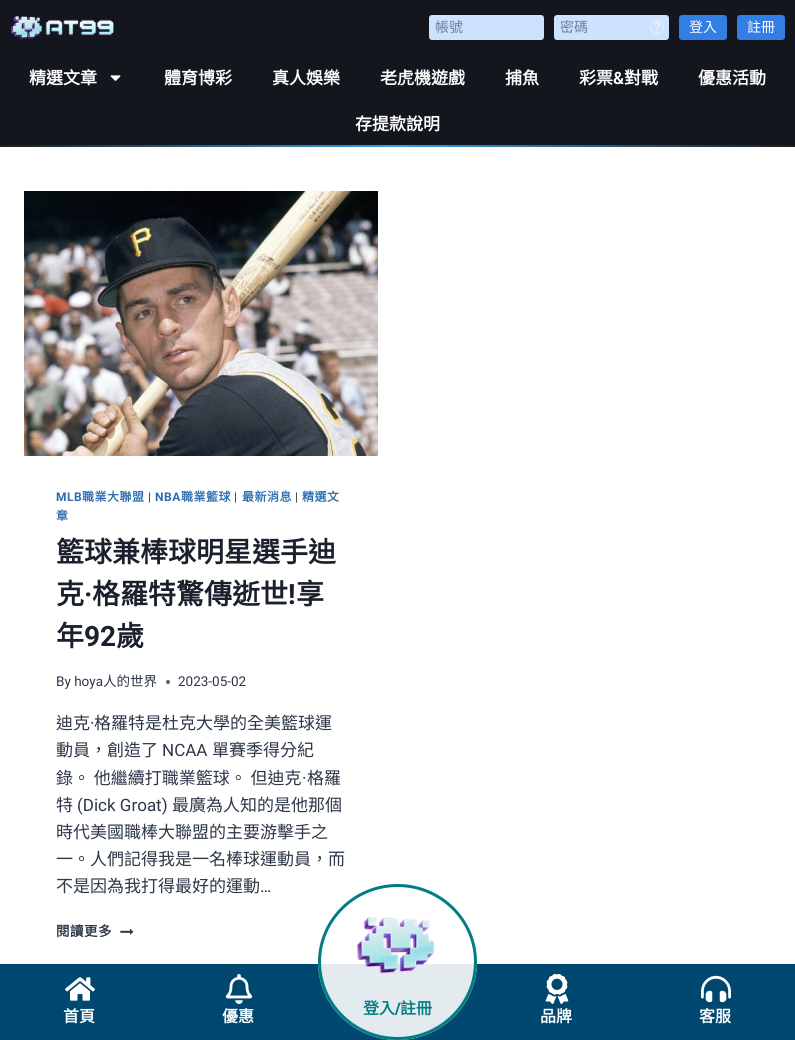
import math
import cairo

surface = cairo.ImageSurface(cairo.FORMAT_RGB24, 795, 1040)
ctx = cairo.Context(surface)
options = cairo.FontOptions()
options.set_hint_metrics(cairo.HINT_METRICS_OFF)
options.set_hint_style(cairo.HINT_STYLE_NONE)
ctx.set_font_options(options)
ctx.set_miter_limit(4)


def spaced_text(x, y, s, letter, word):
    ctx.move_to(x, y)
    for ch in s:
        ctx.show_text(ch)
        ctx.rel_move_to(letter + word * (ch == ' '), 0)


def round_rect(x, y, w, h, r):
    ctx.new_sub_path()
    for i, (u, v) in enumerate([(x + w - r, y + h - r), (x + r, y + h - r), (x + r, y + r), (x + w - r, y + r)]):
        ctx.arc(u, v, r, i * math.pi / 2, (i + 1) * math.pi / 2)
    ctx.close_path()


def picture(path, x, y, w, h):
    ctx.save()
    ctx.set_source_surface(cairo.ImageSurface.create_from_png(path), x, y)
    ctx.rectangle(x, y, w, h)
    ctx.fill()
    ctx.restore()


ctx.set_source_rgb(1, 1, 1)
ctx.paint()
ctx.set_source_rgb(0.078, 0.09, 0.114)
ctx.rectangle(0, 0, 795, 145)
ctx.fill()
picture("img1.png", 11, 15, 104, 25)
ctx.set_source_rgb(0.8, 0.886, 1)
round_rect(429, 15, 115, 25, 3)
ctx.fill()
ctx.select_font_face("Noto Sans CJK TC")
ctx.set_font_size(14)
ctx.set_source_rgb(0.443, 0.502, 0.588)
ctx.move_to(435, 32)
ctx.show_text("帳號")
ctx.set_source_rgb(0.8, 0.886, 1)
round_rect(554, 15, 115, 25, 3)
ctx.fill()
ctx.set_source_rgb(0.443, 0.502, 0.588)
ctx.move_to(560, 32)
ctx.show_text("密碼")
picture("img2.png", 650, 20, 14, 14)
ctx.set_source_rgb(0.196, 0.494, 0.898)
round_rect(679, 15, 48, 25, 3)
ctx.fill()
ctx.set_source_rgb(1, 1, 1)
ctx.move_to(689, 32)
ctx.show_text("登入")
ctx.set_source_rgb(0.196, 0.494, 0.898)
round_rect(737, 15, 48, 25, 3)
ctx.fill()
ctx.set_source_rgb(1, 1, 1)
ctx.move_to(747, 32)
ctx.show_text("註冊")
ctx.select_font_face("Noto Sans CJK TC", cairo.FONT_SLANT_NORMAL, cairo.FONT_WEIGHT_BOLD)
ctx.set_font_size(17)
ctx.move_to(29, 84)
ctx.show_text("精選文章")
picture("img3.png", 110, 75, 11, 6)
ctx.move_to(164, 84)
ctx.show_text("體育博彩")
ctx.move_to(272, 84)
ctx.show_text("真人娛樂")
ctx.move_to(380, 84)
ctx.show_text("老虎機遊戲")
ctx.move_to(505, 84)
ctx.show_text("捕魚")
ctx.move_to(579, 84)
ctx.show_text("彩票")
ctx.select_font_face("Roboto SemiBold")
ctx.move_to(613, 84)
ctx.show_text("&")
ctx.select_font_face("Noto Sans CJK TC", cairo.FONT_SLANT_NORMAL, cairo.FONT_WEIGHT_BOLD)
ctx.move_to(624, 84)
ctx.show_text("對戰")
ctx.move_to(698, 84)
ctx.show_text("優惠活動")
ctx.move_to(355, 130)
ctx.show_text("存提款說明")
gradient = cairo.LinearGradient(0, 146, 795, 146)
gradient.add_color_stop_rgba(0, 0.106, 0.118, 0.102, 1)
gradient.add_color_stop_rgba(0.5, 0.224, 0.624, 0.91, 1)
gradient.add_color_stop_rgba(1, 0.11, 0.118, 0.11, 1)
ctx.set_source(gradient)
ctx.rectangle(0, 145, 795, 2)
ctx.fill()
picture("img4.png", 24, 191, 354, 265)
ctx.select_font_face("Roboto", cairo.FONT_SLANT_NORMAL, cairo.FONT_WEIGHT_BOLD)
ctx.set_font_size(12)
ctx.set_source_rgb(0.169, 0.424, 0.69)
spaced_text(56, 501, "MLB", 0.5, 0)
ctx.select_font_face("Noto Sans CJK TC", cairo.FONT_SLANT_NORMAL, cairo.FONT_WEIGHT_BOLD)
spaced_text(82, 501, "職業大聯盟", 0.5, 0)
ctx.select_font_face("Roboto")
ctx.set_source_rgb(0.176, 0.216, 0.282)
spaced_text(148, 501, "|", 0.5, 0)
ctx.select_font_face("Roboto", cairo.FONT_SLANT_NORMAL, cairo.FONT_WEIGHT_BOLD)
ctx.set_source_rgb(0.169, 0.424, 0.69)
spaced_text(155, 501, "NBA", 0.5, 0)
ctx.select_font_face("Noto Sans CJK TC", cairo.FONT_SLANT_NORMAL, cairo.FONT_WEIGHT_BOLD)
spaced_text(181, 501, "職業籃球", 0.5, 0)
ctx.select_font_face("Roboto")
ctx.set_source_rgb(0.176, 0.216, 0.282)
spaced_text(234, 501, "|", 0.5, 0)
ctx.select_font_face("Noto Sans CJK TC", cairo.FONT_SLANT_NORMAL, cairo.FONT_WEIGHT_BOLD)
ctx.set_source_rgb(0.169, 0.424, 0.69)
spaced_text(242, 501, "最新消息", 0.5, 0)
ctx.select_font_face("Roboto")
ctx.set_source_rgb(0.176, 0.216, 0.282)
spaced_text(295, 501, "|", 0.5, 0)
ctx.select_font_face("Noto Sans CJK TC", cairo.FONT_SLANT_NORMAL, cairo.FONT_WEIGHT_BOLD)
ctx.set_source_rgb(0.169, 0.424, 0.69)
spaced_text(302, 501, "精選文", 0.5, 0)
spaced_text(56, 520, "章", 0.5, 0)
ctx.set_font_size(28)
ctx.set_source_rgb(0.102, 0.125, 0.173)
ctx.move_to(56, 562)
ctx.show_text("籃球兼棒球明星選手迪")
ctx.move_to(56, 604)
ctx.show_text("克")
ctx.select_font_face("Roboto", cairo.FONT_SLANT_NORMAL, cairo.FONT_WEIGHT_BOLD)
ctx.move_to(84, 604)
ctx.show_text("·")
ctx.select_font_face("Noto Sans CJK TC", cairo.FONT_SLANT_NORMAL, cairo.FONT_WEIGHT_BOLD)
ctx.move_to(92, 604)
ctx.show_text("格羅特驚傳逝世")
ctx.select_font_face("Roboto", cairo.FONT_SLANT_NORMAL, cairo.FONT_WEIGHT_BOLD)
ctx.move_to(288, 604)
ctx.show_text("!")
ctx.select_font_face("Noto Sans CJK TC", cairo.FONT_SLANT_NORMAL, cairo.FONT_WEIGHT_BOLD)
ctx.move_to(296, 604)
ctx.show_text("享")
ctx.move_to(56, 646)
ctx.show_text("年")
ctx.select_font_face("Roboto", cairo.FONT_SLANT_NORMAL, cairo.FONT_WEIGHT_BOLD)
ctx.move_to(84, 646)
ctx.show_text("92")
ctx.select_font_face("Noto Sans CJK TC", cairo.FONT_SLANT_NORMAL, cairo.FONT_WEIGHT_BOLD)
ctx.move_to(116, 646)
ctx.show_text("歲")
ctx.select_font_face("Roboto")
ctx.set_font_size(13.5)
ctx.set_source_rgb(0.176, 0.216, 0.282)
ctx.move_to(56, 686)
ctx.show_text("By hoya")
ctx.select_font_face("Noto Sans CJK TC")
ctx.move_to(103, 686)
ctx.show_text("人的世界")
ctx.set_source_rgb(0.341, 0.373, 0.427)
ctx.new_path()
ctx.arc(168, 682, 2, 0, 2 * math.pi)
ctx.fill()
ctx.select_font_face("Roboto")
ctx.set_source_rgb(0.176, 0.216, 0.282)
ctx.move_to(178, 686)
ctx.show_text("2023-05-02")
ctx.select_font_face("Noto Sans CJK TC")
ctx.set_font_size(17)
ctx.move_to(56, 729)
ctx.show_text("迪克")
ctx.select_font_face("Roboto")
ctx.move_to(90, 729)
ctx.show_text("·")
ctx.select_font_face("Noto Sans CJK TC")
ctx.move_to(94, 729)
ctx.show_text("格羅特是杜克大學的全美籃球運")
ctx.move_to(56, 756)
ctx.show_text("動員，創造了")
ctx.select_font_face("Roboto")
ctx.move_to(162, 756)
ctx.show_text("NCAA")
ctx.select_font_face("Noto Sans CJK TC")
ctx.move_to(212, 756)
ctx.show_text("單賽季得分紀")
ctx.move_to(56, 784)
ctx.show_text("錄。 他繼續打職業籃球。 但迪克")
ctx.select_font_face("Roboto")
ctx.move_to(302, 784)
ctx.show_text("·")
ctx.select_font_face("Noto Sans CJK TC")
ctx.move_to(307, 784)
ctx.show_text("格羅")
ctx.move_to(56, 811)
ctx.show_text("特")
ctx.select_font_face("Roboto")
ctx.move_to(77, 811)
ctx.show_text("(Dick Groat)")
ctx.select_font_face("Noto Sans CJK TC")
ctx.move_to(172, 811)
ctx.show_text("最廣為人知的是他那個")
ctx.move_to(56, 838)
ctx.show_text("時代美國職棒大聯盟的主要游擊手之")
ctx.move_to(56, 865)
ctx.show_text("一。人們記得我是一名棒球運動員，而")
ctx.move_to(56, 892)
ctx.show_text("不是因為我打得最好的運動")
ctx.select_font_face("Roboto")
ctx.move_to(260, 892)
ctx.show_text("…")
ctx.select_font_face("Noto Sans CJK TC", cairo.FONT_SLANT_NORMAL, cairo.FONT_WEIGHT_BOLD)
ctx.set_font_size(13.5)
spaced_text(56, 936, "閱讀更多", 0.5, 0)
picture("img5.png", 120, 928, 14, 7)
ctx.set_source_rgb(0, 0.282, 0.435)
ctx.rectangle(0, 964, 795, 76)
ctx.fill()
picture("img6.png", 65, 977, 30, 24)
ctx.set_font_size(16)
ctx.set_source_rgb(1, 1, 1)
ctx.move_to(63, 1022)
ctx.show_text("首頁")
picture("img7.png", 225, 974, 28, 30)
ctx.move_to(222, 1022)
ctx.show_text("優惠")
ctx.set_source_rgba(1, 1, 1, 0.89)
ctx.new_path()
ctx.move_to(397.5, 884)
ctx.curve_to(441.5, 884, 477, 919, 477, 962)
ctx.curve_to(477, 1005, 441.5, 1040, 397.5, 1040)
ctx.curve_to(353.5, 1040, 318, 1005, 318, 962)
ctx.curve_to(318, 919, 353.5, 884, 397.5, 884)
ctx.close_path()
ctx.fill()
ctx.new_path()
ctx.move_to(397.5, 885.5)
ctx.curve_to(440.5, 885.5, 475.5, 920, 475.5, 962)
ctx.curve_to(475.5, 1004, 440.5, 1038.5, 397.5, 1038.5)
ctx.curve_to(354.5, 1038.5, 319.5, 1004, 319.5, 962)
ctx.curve_to(319.5, 920, 354.5, 885.5, 397.5, 885.5)
ctx.close_path()
ctx.set_source_rgb(0, 0.49, 0.514)
ctx.set_line_width(3)
ctx.stroke()
picture("img8.png", 356, 916, 78, 58)
ctx.move_to(363, 1014)
ctx.show_text("登入")
ctx.select_font_face("Roboto Black")
ctx.move_to(395, 1014)
ctx.show_text("/")
ctx.select_font_face("Noto Sans CJK TC", cairo.FONT_SLANT_NORMAL, cairo.FONT_WEIGHT_BOLD)
ctx.move_to(400, 1014)
ctx.show_text("註冊")
picture("img9.png", 545, 974, 24, 30)
ctx.set_source_rgb(1, 1, 1)
ctx.move_to(540, 1022)
ctx.show_text("品牌")
picture("img10.png", 701, 975, 30, 28)
ctx.move_to(699, 1022)
ctx.show_text("客服")
surface.write_to_png("page.png")
